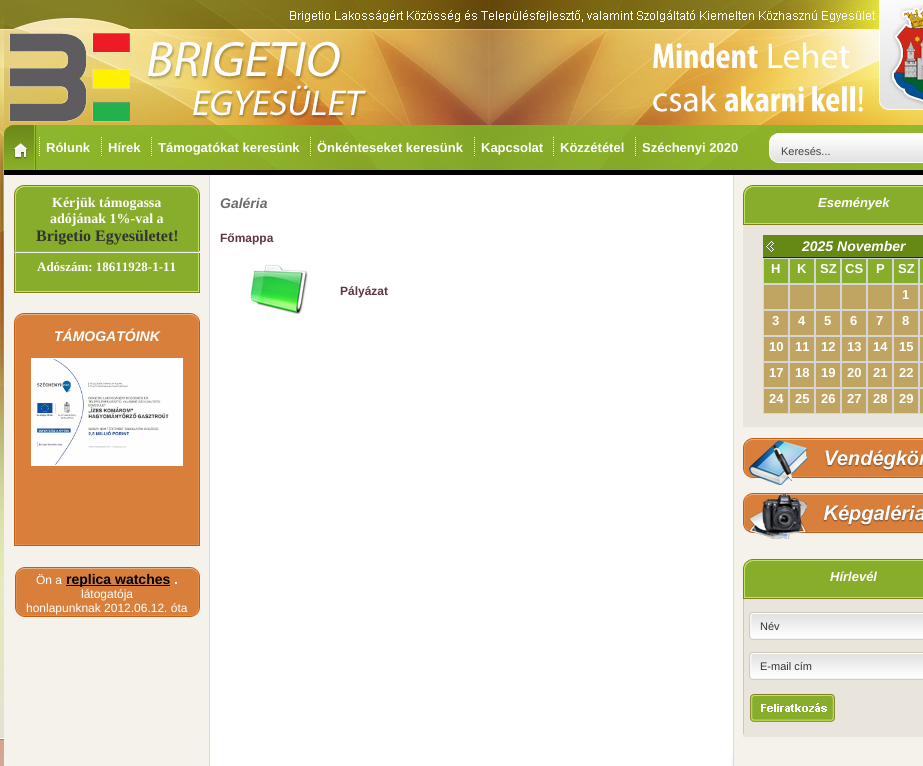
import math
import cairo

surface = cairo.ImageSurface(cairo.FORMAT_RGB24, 923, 766)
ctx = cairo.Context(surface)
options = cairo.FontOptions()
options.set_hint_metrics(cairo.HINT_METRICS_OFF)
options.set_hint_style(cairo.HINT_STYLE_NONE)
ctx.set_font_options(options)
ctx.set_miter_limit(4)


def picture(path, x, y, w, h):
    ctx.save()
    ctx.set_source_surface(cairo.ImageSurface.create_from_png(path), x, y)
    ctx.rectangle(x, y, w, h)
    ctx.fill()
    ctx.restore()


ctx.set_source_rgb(1, 1, 1)
ctx.paint()
picture("img1.png", 0, 0, 4, 738)
picture("img2.png", 4, 0, 919, 125)
picture("img3.png", 4, 125, 919, 50)
ctx.new_path()
ctx.move_to(39.5, 137)
ctx.line_to(39.5, 157)
ctx.set_source_rgb(1, 1, 1)
ctx.set_line_width(1)
ctx.set_dash([1, 1])
ctx.stroke()
ctx.select_font_face("Liberation Sans", cairo.FONT_SLANT_NORMAL, cairo.FONT_WEIGHT_BOLD)
ctx.set_font_size(13)
ctx.move_to(46, 152)
ctx.show_text("Rólunk")
ctx.new_path()
ctx.move_to(101.5, 137)
ctx.line_to(101.5, 157)
ctx.stroke()
ctx.move_to(108, 152)
ctx.show_text("Hírek")
ctx.new_path()
ctx.move_to(151.5, 137)
ctx.line_to(151.5, 157)
ctx.stroke()
ctx.move_to(158, 152)
ctx.show_text("Támogatókat keresünk")
ctx.new_path()
ctx.move_to(310.5, 137)
ctx.line_to(310.5, 157)
ctx.stroke()
ctx.move_to(317, 152)
ctx.show_text("Önkénteseket keresünk")
ctx.new_path()
ctx.move_to(474.5, 137)
ctx.line_to(474.5, 157)
ctx.stroke()
ctx.move_to(481, 152)
ctx.show_text("Kapcsolat")
ctx.new_path()
ctx.move_to(553.5, 137)
ctx.line_to(553.5, 157)
ctx.stroke()
ctx.move_to(560, 152)
ctx.show_text("Közzététel")
ctx.new_path()
ctx.move_to(635.5, 137)
ctx.line_to(635.5, 157)
ctx.stroke()
ctx.move_to(642, 152)
ctx.show_text("Széchenyi 2020")
ctx.select_font_face("Liberation Sans")
ctx.set_font_size(11)
ctx.set_source_rgb(0.263, 0.263, 0.263)
ctx.move_to(781, 155)
ctx.show_text("Keresés...")
picture("img4.png", 4, 175, 206, 563)
picture("img5.png", 14, 185, 186, 10)
picture("img6.png", 14, 195, 186, 94)
ctx.select_font_face("Liberation Serif", cairo.FONT_SLANT_NORMAL, cairo.FONT_WEIGHT_BOLD)
ctx.set_font_size(14)
ctx.set_source_rgb(1, 1, 1)
ctx.move_to(52, 207)
ctx.show_text("Kérjük támogassa")
ctx.move_to(50, 223)
ctx.show_text("adójának 1%-val a")
ctx.set_font_size(16)
ctx.set_source_rgb(0.2, 0.2, 0.2)
ctx.move_to(36, 241)
ctx.show_text("Brigetio Egyesületet!")
ctx.set_source_rgb(0.624, 0.624, 0.624)
ctx.rectangle(14, 251, 186, 1)
ctx.fill()
ctx.set_source_rgb(0.933, 0.933, 0.933)
ctx.rectangle(199, 251, 1, 2)
ctx.fill()
ctx.rectangle(14, 252, 186, 1)
ctx.fill()
ctx.set_source_rgb(0.624, 0.624, 0.624)
ctx.rectangle(14, 251, 1, 2)
ctx.fill()
ctx.set_font_size(13)
ctx.set_source_rgb(1, 1, 1)
ctx.move_to(37, 271)
ctx.show_text("Adószám: 18611928-1-11")
picture("img7.png", 14, 289, 186, 4)
picture("img8.png", 14, 313, 186, 10)
picture("img9.png", 14, 323, 186, 218)
ctx.select_font_face("Liberation Sans", cairo.FONT_SLANT_ITALIC, cairo.FONT_WEIGHT_BOLD)
ctx.set_font_size(14)
ctx.move_to(54, 341)
ctx.show_text("TÁMOGATÓINK")
ctx.rectangle(31.5, 358.5, 151, 107)
ctx.set_dash([])
ctx.stroke()
picture("img10.png", 32, 359, 150, 106)
picture("img11.png", 14, 541, 186, 5)
picture("img12.png", 14, 566, 186, 52)
ctx.select_font_face("Liberation Sans")
ctx.set_font_size(12)
ctx.move_to(36, 584)
ctx.show_text("Ön a")
ctx.set_source_rgb(0, 0, 0)
ctx.rectangle(66, 585, 104, 1)
ctx.fill()
ctx.select_font_face("Liberation Sans", cairo.FONT_SLANT_NORMAL, cairo.FONT_WEIGHT_BOLD)
ctx.set_font_size(14)
ctx.move_to(66, 584)
ctx.show_text("replica watches")
ctx.set_source_rgb(1, 1, 1)
ctx.move_to(174, 584)
ctx.show_text(".")
ctx.select_font_face("Liberation Sans")
ctx.set_font_size(12)
ctx.move_to(81, 598)
ctx.show_text("látogatója")
ctx.move_to(26, 612)
ctx.show_text("honlapunknak 2012.06.12. óta")
ctx.select_font_face("Liberation Sans", cairo.FONT_SLANT_ITALIC, cairo.FONT_WEIGHT_BOLD)
ctx.set_font_size(14)
ctx.set_source_rgb(0.424, 0.424, 0.424)
ctx.move_to(220, 208)
ctx.show_text("Galéria")
ctx.select_font_face("Liberation Sans", cairo.FONT_SLANT_NORMAL, cairo.FONT_WEIGHT_BOLD)
ctx.set_font_size(12)
ctx.set_source_rgb(0.369, 0.208, 0.263)
ctx.move_to(220, 242)
ctx.show_text("Főmappa")
picture("img13.png", 250, 264, 58, 53)
ctx.move_to(340, 295)
ctx.show_text("Pályázat")
picture("img14.png", 733, 175, 190, 563)
picture("img15.png", 743, 185, 180, 40)
ctx.select_font_face("Liberation Sans", cairo.FONT_SLANT_ITALIC, cairo.FONT_WEIGHT_BOLD)
ctx.set_font_size(13)
ctx.set_source_rgb(1, 1, 1)
ctx.move_to(818, 207)
ctx.show_text("Események")
ctx.set_source_rgb(0.914, 0.898, 0.863)
ctx.rectangle(743, 225, 180, 202)
ctx.fill()
ctx.set_source_rgb(0.4, 0.533, 0.082)
ctx.rectangle(763, 235, 160, 22)
ctx.fill()
ctx.set_source_rgb(0.275, 0.059, 0.071)
ctx.rectangle(763, 257, 160, 1)
ctx.fill()
picture("img16.png", 766, 241, 8, 11)
ctx.set_font_size(14)
ctx.set_source_rgb(1, 1, 1)
ctx.move_to(802, 251)
ctx.show_text("2025 November")
ctx.set_source_rgb(0.529, 0.678, 0.169)
ctx.rectangle(763.5, 258.5, 25, 25)
ctx.fill_preserve()
ctx.set_source_rgb(0.835, 0.835, 0.835)
ctx.stroke()
ctx.select_font_face("Liberation Sans", cairo.FONT_SLANT_NORMAL, cairo.FONT_WEIGHT_BOLD)
ctx.set_font_size(13)
ctx.set_source_rgb(1, 1, 1)
ctx.move_to(771, 273)
ctx.show_text("H")
ctx.set_source_rgb(0.529, 0.678, 0.169)
ctx.rectangle(789.5, 258.5, 25, 25)
ctx.fill_preserve()
ctx.set_source_rgb(0.835, 0.835, 0.835)
ctx.stroke()
ctx.set_source_rgb(1, 1, 1)
ctx.move_to(797, 273)
ctx.show_text("K")
ctx.set_source_rgb(0.529, 0.678, 0.169)
ctx.rectangle(815.5, 258.5, 25, 25)
ctx.fill_preserve()
ctx.set_source_rgb(0.835, 0.835, 0.835)
ctx.stroke()
ctx.set_source_rgb(1, 1, 1)
ctx.move_to(820, 273)
ctx.show_text("SZ")
ctx.set_source_rgb(0.529, 0.678, 0.169)
ctx.rectangle(841.5, 258.5, 25, 25)
ctx.fill_preserve()
ctx.set_source_rgb(0.835, 0.835, 0.835)
ctx.stroke()
ctx.set_source_rgb(1, 1, 1)
ctx.move_to(845, 273)
ctx.show_text("CS")
ctx.set_source_rgb(0.529, 0.678, 0.169)
ctx.rectangle(867.5, 258.5, 25, 25)
ctx.fill_preserve()
ctx.set_source_rgb(0.835, 0.835, 0.835)
ctx.stroke()
ctx.set_source_rgb(1, 1, 1)
ctx.move_to(876, 273)
ctx.show_text("P")
ctx.set_source_rgb(0.529, 0.678, 0.169)
ctx.rectangle(893.5, 258.5, 25, 25)
ctx.fill_preserve()
ctx.set_source_rgb(0.835, 0.835, 0.835)
ctx.stroke()
ctx.set_source_rgb(1, 1, 1)
ctx.move_to(898, 273)
ctx.show_text("SZ")
ctx.set_source_rgb(0.529, 0.678, 0.169)
ctx.rectangle(919.5, 258.5, 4, 25)
ctx.fill_preserve()
ctx.set_source_rgb(0.835, 0.835, 0.835)
ctx.stroke()
ctx.set_source_rgb(0.753, 0.647, 0.384)
ctx.rectangle(763.5, 284.5, 25, 25)
ctx.fill_preserve()
ctx.set_source_rgb(0.835, 0.835, 0.835)
ctx.stroke()
ctx.set_source_rgb(0.753, 0.647, 0.384)
ctx.rectangle(789.5, 284.5, 25, 25)
ctx.fill_preserve()
ctx.set_source_rgb(0.835, 0.835, 0.835)
ctx.stroke()
ctx.set_source_rgb(0.753, 0.647, 0.384)
ctx.rectangle(815.5, 284.5, 25, 25)
ctx.fill_preserve()
ctx.set_source_rgb(0.835, 0.835, 0.835)
ctx.stroke()
ctx.set_source_rgb(0.753, 0.647, 0.384)
ctx.rectangle(841.5, 284.5, 25, 25)
ctx.fill_preserve()
ctx.set_source_rgb(0.835, 0.835, 0.835)
ctx.stroke()
ctx.set_source_rgb(0.753, 0.647, 0.384)
ctx.rectangle(867.5, 284.5, 25, 25)
ctx.fill_preserve()
ctx.set_source_rgb(0.835, 0.835, 0.835)
ctx.stroke()
ctx.set_source_rgb(0.753, 0.647, 0.384)
ctx.rectangle(893.5, 284.5, 25, 25)
ctx.fill_preserve()
ctx.set_source_rgb(0.835, 0.835, 0.835)
ctx.stroke()
ctx.set_source_rgb(1, 1, 1)
ctx.move_to(902, 299)
ctx.show_text("1")
ctx.set_source_rgb(0.753, 0.647, 0.384)
ctx.rectangle(919.5, 284.5, 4, 25)
ctx.fill_preserve()
ctx.set_source_rgb(0.835, 0.835, 0.835)
ctx.stroke()
ctx.set_source_rgb(0.753, 0.647, 0.384)
ctx.rectangle(763.5, 310.5, 25, 25)
ctx.fill_preserve()
ctx.set_source_rgb(0.835, 0.835, 0.835)
ctx.stroke()
ctx.set_source_rgb(1, 1, 1)
ctx.move_to(772, 325)
ctx.show_text("3")
ctx.set_source_rgb(0.753, 0.647, 0.384)
ctx.rectangle(789.5, 310.5, 25, 25)
ctx.fill_preserve()
ctx.set_source_rgb(0.835, 0.835, 0.835)
ctx.stroke()
ctx.set_source_rgb(1, 1, 1)
ctx.move_to(798, 325)
ctx.show_text("4")
ctx.set_source_rgb(0.753, 0.647, 0.384)
ctx.rectangle(815.5, 310.5, 25, 25)
ctx.fill_preserve()
ctx.set_source_rgb(0.835, 0.835, 0.835)
ctx.stroke()
ctx.set_source_rgb(1, 1, 1)
ctx.move_to(824, 325)
ctx.show_text("5")
ctx.set_source_rgb(0.753, 0.647, 0.384)
ctx.rectangle(841.5, 310.5, 25, 25)
ctx.fill_preserve()
ctx.set_source_rgb(0.835, 0.835, 0.835)
ctx.stroke()
ctx.set_source_rgb(1, 1, 1)
ctx.move_to(850, 325)
ctx.show_text("6")
ctx.set_source_rgb(0.753, 0.647, 0.384)
ctx.rectangle(867.5, 310.5, 25, 25)
ctx.fill_preserve()
ctx.set_source_rgb(0.835, 0.835, 0.835)
ctx.stroke()
ctx.set_source_rgb(1, 1, 1)
ctx.move_to(876, 325)
ctx.show_text("7")
ctx.set_source_rgb(0.753, 0.647, 0.384)
ctx.rectangle(893.5, 310.5, 25, 25)
ctx.fill_preserve()
ctx.set_source_rgb(0.835, 0.835, 0.835)
ctx.stroke()
ctx.set_source_rgb(1, 1, 1)
ctx.move_to(902, 325)
ctx.show_text("8")
ctx.set_source_rgb(0.753, 0.647, 0.384)
ctx.rectangle(919.5, 310.5, 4, 25)
ctx.fill_preserve()
ctx.set_source_rgb(0.835, 0.835, 0.835)
ctx.stroke()
ctx.set_source_rgb(0.753, 0.647, 0.384)
ctx.rectangle(763.5, 336.5, 25, 25)
ctx.fill_preserve()
ctx.set_source_rgb(0.835, 0.835, 0.835)
ctx.stroke()
ctx.set_source_rgb(1, 1, 1)
ctx.move_to(769, 351)
ctx.show_text("10")
ctx.set_source_rgb(0.753, 0.647, 0.384)
ctx.rectangle(789.5, 336.5, 25, 25)
ctx.fill_preserve()
ctx.set_source_rgb(0.835, 0.835, 0.835)
ctx.stroke()
ctx.set_source_rgb(1, 1, 1)
ctx.move_to(795, 351)
ctx.show_text("11")
ctx.set_source_rgb(0.753, 0.647, 0.384)
ctx.rectangle(815.5, 336.5, 25, 25)
ctx.fill_preserve()
ctx.set_source_rgb(0.835, 0.835, 0.835)
ctx.stroke()
ctx.set_source_rgb(1, 1, 1)
ctx.move_to(821, 351)
ctx.show_text("12")
ctx.set_source_rgb(0.753, 0.647, 0.384)
ctx.rectangle(841.5, 336.5, 25, 25)
ctx.fill_preserve()
ctx.set_source_rgb(0.835, 0.835, 0.835)
ctx.stroke()
ctx.set_source_rgb(1, 1, 1)
ctx.move_to(847, 351)
ctx.show_text("13")
ctx.set_source_rgb(0.753, 0.647, 0.384)
ctx.rectangle(867.5, 336.5, 25, 25)
ctx.fill_preserve()
ctx.set_source_rgb(0.835, 0.835, 0.835)
ctx.stroke()
ctx.set_source_rgb(1, 1, 1)
ctx.move_to(873, 351)
ctx.show_text("14")
ctx.set_source_rgb(0.753, 0.647, 0.384)
ctx.rectangle(893.5, 336.5, 25, 25)
ctx.fill_preserve()
ctx.set_source_rgb(0.835, 0.835, 0.835)
ctx.stroke()
ctx.set_source_rgb(1, 1, 1)
ctx.move_to(899, 351)
ctx.show_text("15")
ctx.set_source_rgb(0.753, 0.647, 0.384)
ctx.rectangle(919.5, 336.5, 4, 25)
ctx.fill_preserve()
ctx.set_source_rgb(0.835, 0.835, 0.835)
ctx.stroke()
ctx.set_source_rgb(0.753, 0.647, 0.384)
ctx.rectangle(763.5, 362.5, 25, 25)
ctx.fill_preserve()
ctx.set_source_rgb(0.835, 0.835, 0.835)
ctx.stroke()
ctx.set_source_rgb(1, 1, 1)
ctx.move_to(769, 377)
ctx.show_text("17")
ctx.set_source_rgb(0.753, 0.647, 0.384)
ctx.rectangle(789.5, 362.5, 25, 25)
ctx.fill_preserve()
ctx.set_source_rgb(0.835, 0.835, 0.835)
ctx.stroke()
ctx.set_source_rgb(1, 1, 1)
ctx.move_to(795, 377)
ctx.show_text("18")
ctx.set_source_rgb(0.753, 0.647, 0.384)
ctx.rectangle(815.5, 362.5, 25, 25)
ctx.fill_preserve()
ctx.set_source_rgb(0.835, 0.835, 0.835)
ctx.stroke()
ctx.set_source_rgb(1, 1, 1)
ctx.move_to(821, 377)
ctx.show_text("19")
ctx.set_source_rgb(0.753, 0.647, 0.384)
ctx.rectangle(841.5, 362.5, 25, 25)
ctx.fill_preserve()
ctx.set_source_rgb(0.835, 0.835, 0.835)
ctx.stroke()
ctx.set_source_rgb(1, 1, 1)
ctx.move_to(847, 377)
ctx.show_text("20")
ctx.set_source_rgb(0.753, 0.647, 0.384)
ctx.rectangle(867.5, 362.5, 25, 25)
ctx.fill_preserve()
ctx.set_source_rgb(0.835, 0.835, 0.835)
ctx.stroke()
ctx.set_source_rgb(1, 1, 1)
ctx.move_to(873, 377)
ctx.show_text("21")
ctx.set_source_rgb(0.753, 0.647, 0.384)
ctx.rectangle(893.5, 362.5, 25, 25)
ctx.fill_preserve()
ctx.set_source_rgb(0.835, 0.835, 0.835)
ctx.stroke()
ctx.set_source_rgb(1, 1, 1)
ctx.move_to(899, 377)
ctx.show_text("22")
ctx.set_source_rgb(0.753, 0.647, 0.384)
ctx.rectangle(919.5, 362.5, 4, 25)
ctx.fill_preserve()
ctx.set_source_rgb(0.835, 0.835, 0.835)
ctx.stroke()
ctx.set_source_rgb(0.753, 0.647, 0.384)
ctx.rectangle(763.5, 388.5, 25, 25)
ctx.fill_preserve()
ctx.set_source_rgb(0.835, 0.835, 0.835)
ctx.stroke()
ctx.set_source_rgb(1, 1, 1)
ctx.move_to(769, 403)
ctx.show_text("24")
ctx.set_source_rgb(0.753, 0.647, 0.384)
ctx.rectangle(789.5, 388.5, 25, 25)
ctx.fill_preserve()
ctx.set_source_rgb(0.835, 0.835, 0.835)
ctx.stroke()
ctx.set_source_rgb(1, 1, 1)
ctx.move_to(795, 403)
ctx.show_text("25")
ctx.set_source_rgb(0.753, 0.647, 0.384)
ctx.rectangle(815.5, 388.5, 25, 25)
ctx.fill_preserve()
ctx.set_source_rgb(0.835, 0.835, 0.835)
ctx.stroke()
ctx.set_source_rgb(1, 1, 1)
ctx.move_to(821, 403)
ctx.show_text("26")
ctx.set_source_rgb(0.753, 0.647, 0.384)
ctx.rectangle(841.5, 388.5, 25, 25)
ctx.fill_preserve()
ctx.set_source_rgb(0.835, 0.835, 0.835)
ctx.stroke()
ctx.set_source_rgb(1, 1, 1)
ctx.move_to(847, 403)
ctx.show_text("27")
ctx.set_source_rgb(0.753, 0.647, 0.384)
ctx.rectangle(867.5, 388.5, 25, 25)
ctx.fill_preserve()
ctx.set_source_rgb(0.835, 0.835, 0.835)
ctx.stroke()
ctx.set_source_rgb(1, 1, 1)
ctx.move_to(873, 403)
ctx.show_text("28")
ctx.set_source_rgb(0.753, 0.647, 0.384)
ctx.rectangle(893.5, 388.5, 25, 25)
ctx.fill_preserve()
ctx.set_source_rgb(0.835, 0.835, 0.835)
ctx.stroke()
ctx.set_source_rgb(1, 1, 1)
ctx.move_to(899, 403)
ctx.show_text("29")
ctx.set_source_rgb(0.753, 0.647, 0.384)
ctx.rectangle(919.5, 388.5, 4, 25)
ctx.fill_preserve()
ctx.set_source_rgb(0.835, 0.835, 0.835)
ctx.stroke()
picture("img17.png", 743, 438, 180, 47)
picture("img18.png", 743, 490, 180, 49)
picture("img15.png", 743, 559, 180, 40)
ctx.select_font_face("Liberation Sans", cairo.FONT_SLANT_ITALIC, cairo.FONT_WEIGHT_BOLD)
ctx.set_source_rgb(1, 1, 1)
ctx.move_to(830, 581)
ctx.show_text("Hírlevél")
picture("img19.png", 743, 599, 180, 135)
ctx.select_font_face("Liberation Sans")
ctx.set_font_size(11)
ctx.set_source_rgb(0.2, 0.2, 0.2)
ctx.move_to(760, 630)
ctx.show_text("Név")
ctx.move_to(760, 670)
ctx.show_text("E-mail cím")
picture("img20.png", 750, 694, 85, 28)
ctx.set_source_rgb(0.914, 0.898, 0.863)
ctx.rectangle(743, 734, 180, 3)
ctx.fill()
picture("img21.png", 0, 738, 4, 28)
picture("img22.png", 4, 738, 919, 28)
surface.write_to_png("page.png")
